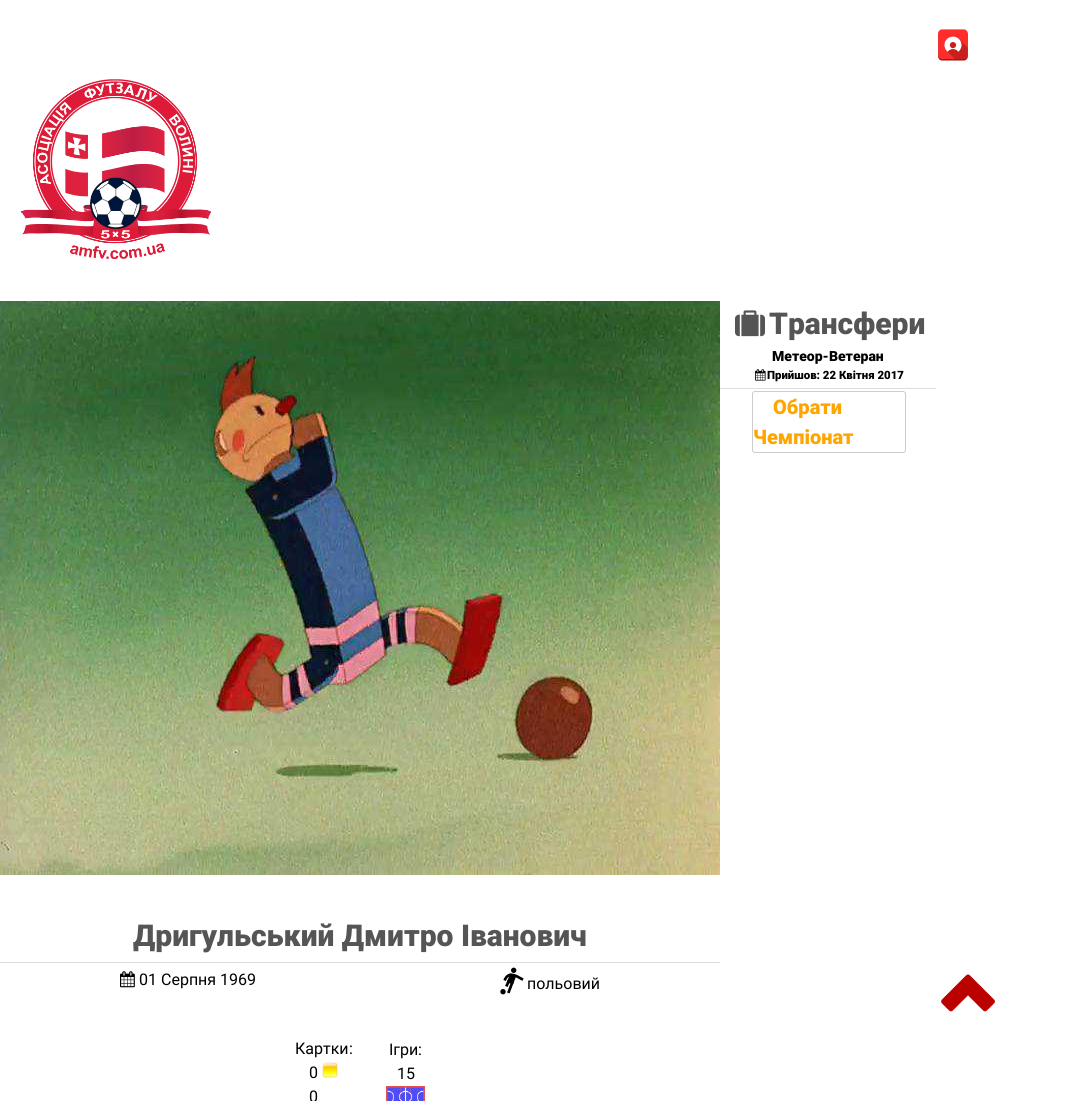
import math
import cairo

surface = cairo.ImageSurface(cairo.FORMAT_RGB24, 1073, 1101)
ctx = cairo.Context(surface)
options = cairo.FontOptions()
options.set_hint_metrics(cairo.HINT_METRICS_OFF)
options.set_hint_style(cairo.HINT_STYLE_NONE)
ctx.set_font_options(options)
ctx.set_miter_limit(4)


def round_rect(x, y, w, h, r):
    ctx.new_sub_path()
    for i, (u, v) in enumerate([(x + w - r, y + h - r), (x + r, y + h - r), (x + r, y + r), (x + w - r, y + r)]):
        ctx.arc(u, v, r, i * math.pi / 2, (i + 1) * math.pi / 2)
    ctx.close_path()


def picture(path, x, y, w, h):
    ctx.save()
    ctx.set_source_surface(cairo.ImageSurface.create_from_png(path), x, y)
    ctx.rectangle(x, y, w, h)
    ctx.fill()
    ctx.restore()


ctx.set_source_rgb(1, 1, 1)
ctx.paint()
picture("img1.png", 938, 29, 30, 32)
picture("img2.png", 20, 79, 191, 180)
picture("img3.png", 735, 310, 30, 27)
ctx.select_font_face("Roboto Black")
ctx.set_font_size(30)
ctx.set_source_rgb(0.333, 0.333, 0.333)
ctx.move_to(769, 334)
ctx.show_text("Трансфери")
ctx.set_font_size(14)
ctx.set_source_rgb(0, 0, 0)
ctx.move_to(772, 361)
ctx.show_text("Метеор-Ветеран")
picture("img4.png", 755, 369, 11, 12)
ctx.set_font_size(11.4)
ctx.move_to(767, 379)
ctx.show_text("Прийшов: 22 Квітня 2017")
ctx.set_source_rgb(0.871, 0.871, 0.871)
ctx.rectangle(720, 388, 216, 1)
ctx.fill()
round_rect(752.5, 391.5, 153, 61, 2.5)
ctx.set_source_rgb(0.8, 0.8, 0.8)
ctx.set_line_width(1)
ctx.stroke()
ctx.set_font_size(20)
ctx.set_source_rgb(1, 0.647, 0)
ctx.move_to(773, 414)
ctx.show_text("Обрати")
ctx.move_to(753, 444)
ctx.show_text("Чемпіонат")
picture("img5.png", 0, 301, 720, 574)
ctx.set_font_size(30)
ctx.set_source_rgb(0.333, 0.333, 0.333)
ctx.move_to(133, 946)
ctx.show_text("Дригульський Дмитро Іванович")
ctx.set_source_rgb(0.871, 0.871, 0.871)
ctx.rectangle(0, 962, 720, 1)
ctx.fill()
picture("img6.png", 120, 971, 15, 17)
ctx.select_font_face("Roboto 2")
ctx.set_font_size(16)
ctx.set_source_rgb(0, 0, 0)
ctx.move_to(139, 985)
ctx.show_text("01")
ctx.select_font_face("Roboto")
ctx.move_to(161, 985)
ctx.show_text("Серпня")
ctx.select_font_face("Roboto 2")
ctx.move_to(220, 985)
ctx.show_text("1969")
picture("img7.png", 500, 967, 24, 28)
ctx.select_font_face("Roboto")
ctx.move_to(527, 989)
ctx.show_text("польовий")
ctx.move_to(295, 1054)
ctx.show_text("Картки")
ctx.select_font_face("Roboto 2")
ctx.move_to(349, 1054)
ctx.show_text(":")
ctx.move_to(309, 1078)
ctx.show_text("0")
picture("img8.png", 322, 1062, 16, 16)
ctx.move_to(309, 1102)
ctx.show_text("0")
ctx.select_font_face("Roboto")
ctx.move_to(389, 1055)
ctx.show_text("Ігри")
ctx.select_font_face("Roboto 2")
ctx.move_to(418, 1055)
ctx.show_text(":")
ctx.move_to(397, 1079)
ctx.show_text("15")
picture("img9.png", 386, 1086, 39, 15)
picture("img10.png", 941, 974, 54, 38)
surface.write_to_png("page.png")
